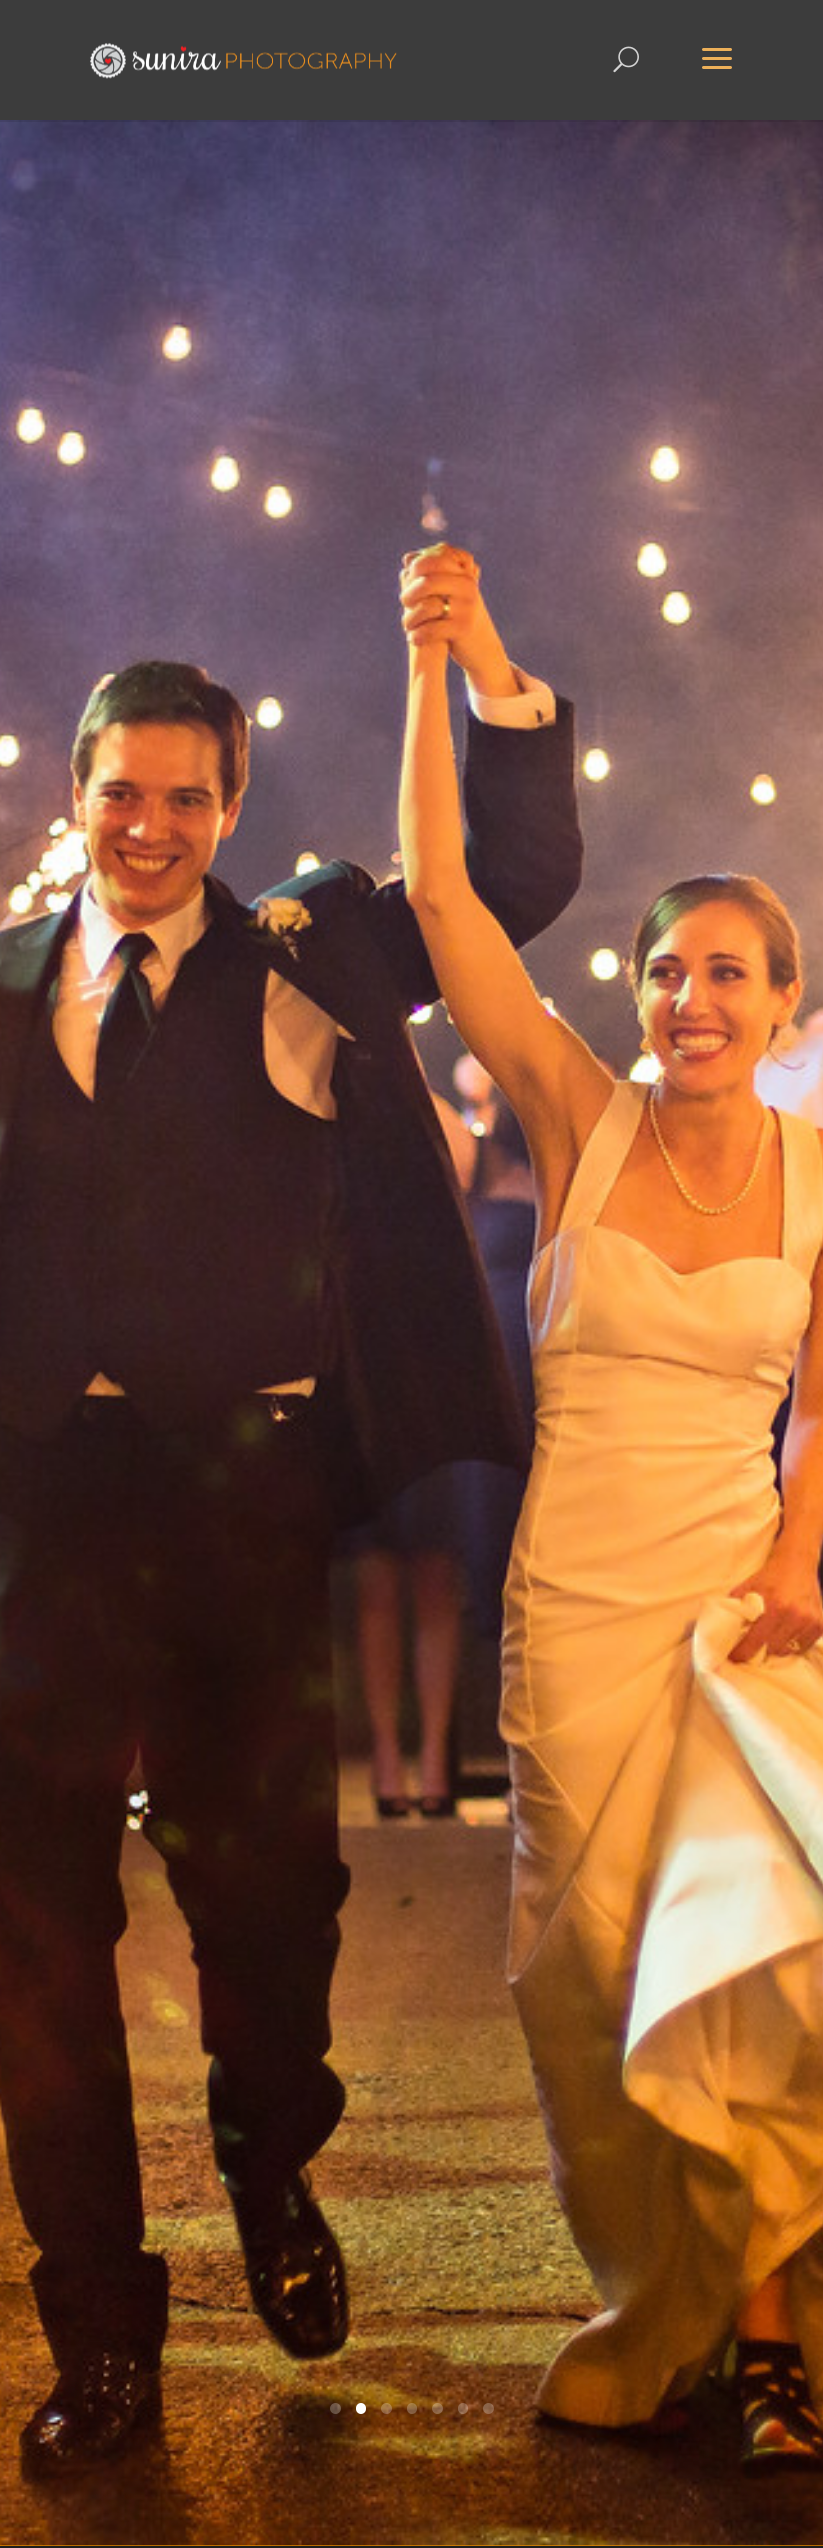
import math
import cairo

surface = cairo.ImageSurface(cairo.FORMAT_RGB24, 823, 2548)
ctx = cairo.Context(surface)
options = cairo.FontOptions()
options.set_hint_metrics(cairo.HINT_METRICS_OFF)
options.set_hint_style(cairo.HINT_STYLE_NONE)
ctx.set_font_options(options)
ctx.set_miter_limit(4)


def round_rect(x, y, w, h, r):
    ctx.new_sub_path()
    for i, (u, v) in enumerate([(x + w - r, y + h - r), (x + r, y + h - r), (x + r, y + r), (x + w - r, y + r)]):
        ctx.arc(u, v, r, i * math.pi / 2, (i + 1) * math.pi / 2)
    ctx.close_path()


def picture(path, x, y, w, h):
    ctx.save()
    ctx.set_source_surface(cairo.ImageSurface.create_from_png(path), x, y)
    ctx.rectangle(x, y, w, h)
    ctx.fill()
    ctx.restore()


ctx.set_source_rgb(0.122, 0.122, 0.122)
ctx.paint()
ctx.set_source_rgb(0.867, 0.522, 0)
ctx.rectangle(0, 2545, 823, 1)
ctx.fill()
picture("img4.png", 0, 120, 823, 2426)
ctx.set_source_rgba(0, 0, 0, 0.1)
ctx.new_path()
ctx.move_to(0, 120)
ctx.line_to(0, 122)
ctx.line_to(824, 122)
ctx.line_to(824, 2)
ctx.line_to(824, 120)
ctx.close_path()
ctx.fill()
ctx.set_source_rgb(0.235, 0.235, 0.235)
ctx.rectangle(0, 0, 823, 120)
ctx.fill()
picture("img1.png", 90, 42, 307, 37)
picture("img2.png", 613, 46, 26, 27)
picture("img3.png", 702, 48, 30, 21)
ctx.set_source_rgba(1, 1, 1, 0.25)
ctx.arc(335.5, 2408.5, 5.5, 0, 2 * math.pi)
ctx.fill()
ctx.set_source_rgb(1, 1, 1)
round_rect(356, 2403, 10, 11, 5)
ctx.fill()
ctx.set_source_rgba(1, 1, 1, 0.25)
ctx.arc(386.5, 2408.5, 5.5, 0, 2 * math.pi)
ctx.fill()
round_rect(407, 2403, 10, 11, 5)
ctx.fill()
ctx.arc(437.5, 2408.5, 5.5, 0, 2 * math.pi)
ctx.fill()
round_rect(458, 2403, 10, 11, 5)
ctx.fill()
ctx.arc(488.5, 2408.5, 5.5, 0, 2 * math.pi)
ctx.fill()
surface.write_to_png("page.png")
